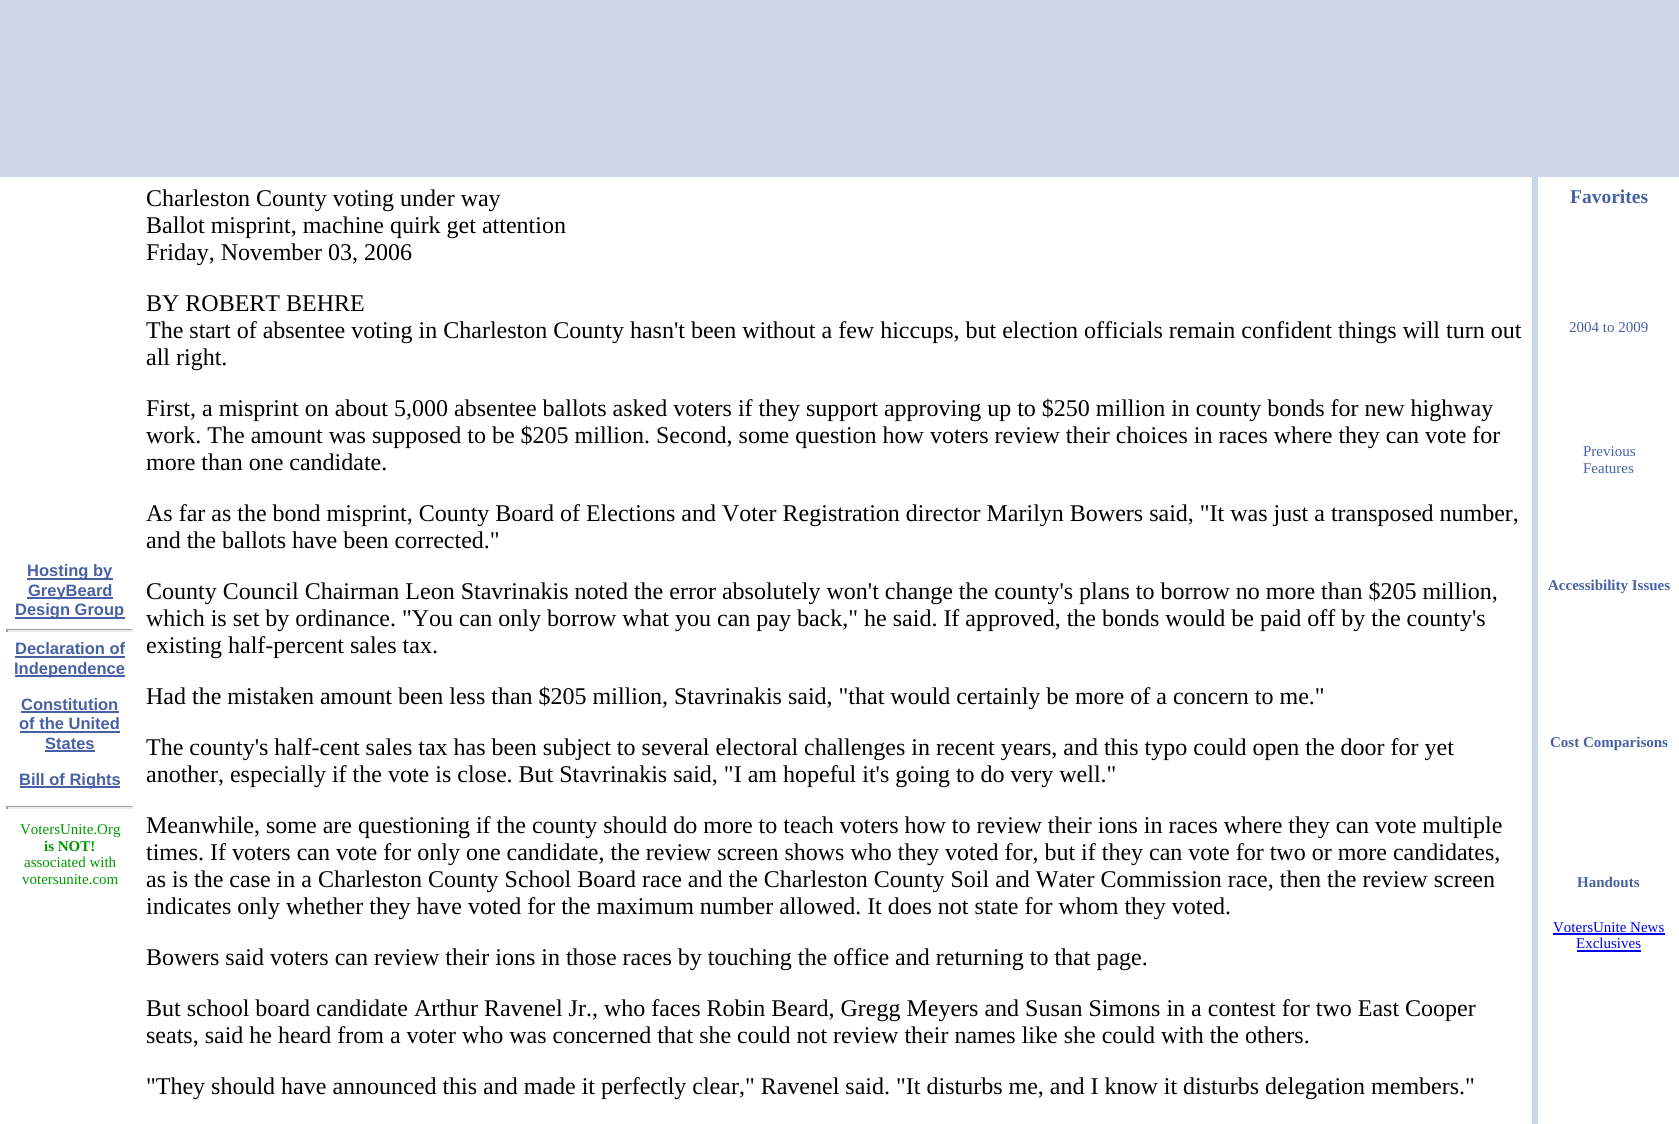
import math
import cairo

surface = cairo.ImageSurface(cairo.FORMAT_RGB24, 1679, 1124)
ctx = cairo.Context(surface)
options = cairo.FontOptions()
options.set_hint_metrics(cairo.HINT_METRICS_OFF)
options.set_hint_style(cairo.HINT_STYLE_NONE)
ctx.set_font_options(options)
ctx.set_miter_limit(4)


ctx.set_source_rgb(1, 1, 1)
ctx.paint()
ctx.set_source_rgb(0.8, 0.839, 0.898)
ctx.rectangle(0, 0, 1679, 177)
ctx.fill()
ctx.set_source_rgb(0.282, 0.38, 0.643)
ctx.rectangle(27, 578, 86, 2)
ctx.fill()
ctx.select_font_face("Liberation Sans", cairo.FONT_SLANT_NORMAL, cairo.FONT_WEIGHT_BOLD)
ctx.set_font_size(16.5)
ctx.move_to(27, 576)
ctx.show_text("Hosting by")
ctx.rectangle(27, 597, 86, 2)
ctx.fill()
ctx.move_to(28, 596)
ctx.show_text("GreyBeard")
ctx.rectangle(15, 617, 110, 2)
ctx.fill()
ctx.move_to(15, 615)
ctx.show_text("Design Group")
ctx.set_source_rgb(0.624, 0.624, 0.624)
ctx.rectangle(6, 629, 128, 1)
ctx.fill()
ctx.set_source_rgb(0.933, 0.933, 0.933)
ctx.rectangle(132, 629, 2, 3)
ctx.fill()
ctx.rectangle(6, 630, 128, 2)
ctx.fill()
ctx.set_source_rgb(0.624, 0.624, 0.624)
ctx.rectangle(6, 629, 2, 3)
ctx.fill()
ctx.set_source_rgb(0.282, 0.38, 0.643)
ctx.move_to(15, 654)
ctx.show_text("Declaration of")
ctx.rectangle(15, 656, 110, 2)
ctx.fill()
ctx.rectangle(15, 675, 110, 2)
ctx.fill()
ctx.move_to(14, 674)
ctx.show_text("Independence")
ctx.move_to(21, 710)
ctx.show_text("Constitution")
ctx.rectangle(21, 711, 98, 2)
ctx.fill()
ctx.move_to(19, 729)
ctx.show_text("of the United")
ctx.rectangle(20, 731, 100, 2)
ctx.fill()
ctx.move_to(45, 749)
ctx.show_text("States")
ctx.rectangle(45, 750, 50, 2)
ctx.fill()
ctx.rectangle(20, 786, 100, 2)
ctx.fill()
ctx.move_to(19, 785)
ctx.show_text("Bill of Rights")
ctx.set_source_rgb(0.624, 0.624, 0.624)
ctx.rectangle(6, 806, 128, 1)
ctx.fill()
ctx.set_source_rgb(0.933, 0.933, 0.933)
ctx.rectangle(132, 806, 2, 3)
ctx.fill()
ctx.rectangle(6, 807, 128, 2)
ctx.fill()
ctx.set_source_rgb(0.624, 0.624, 0.624)
ctx.rectangle(6, 806, 2, 3)
ctx.fill()
ctx.select_font_face("Liberation Serif")
ctx.set_font_size(15)
ctx.set_source_rgb(0, 0.6, 0)
ctx.move_to(20, 834)
ctx.show_text("VotersUnite.Org")
ctx.select_font_face("Liberation Serif", cairo.FONT_SLANT_NORMAL, cairo.FONT_WEIGHT_BOLD)
ctx.move_to(44, 851)
ctx.show_text("is NOT!")
ctx.select_font_face("Liberation Serif")
ctx.move_to(24, 867)
ctx.show_text("associated with")
ctx.move_to(22, 884)
ctx.show_text("votersunite.com")
ctx.set_font_size(24)
ctx.set_source_rgb(0, 0, 0)
ctx.move_to(146, 206)
ctx.show_text("Charleston County voting under way")
ctx.move_to(146, 233)
ctx.show_text("Ballot misprint, machine quirk get attention")
ctx.move_to(146, 260)
ctx.show_text("Friday, November 03, 2006")
ctx.move_to(146, 311)
ctx.show_text("BY ROBERT BEHRE")
ctx.move_to(146, 338)
ctx.show_text("The start of absentee voting in Charleston County hasn't been without a few hiccups, but election officials remain confident things will turn out")
ctx.move_to(146, 365)
ctx.show_text("all right.")
ctx.move_to(146, 416)
ctx.show_text("First, a misprint on about 5,000 absentee ballots asked voters if they support approving up to $250 million in county bonds for new highway")
ctx.move_to(146, 443)
ctx.show_text("work. The amount was supposed to be $205 million. Second, some question how voters review their choices in races where they can vote for")
ctx.move_to(146, 470)
ctx.show_text("more than one candidate.")
ctx.move_to(146, 521)
ctx.show_text("As far as the bond misprint, County Board of Elections and Voter Registration director Marilyn Bowers said, \"It was just a transposed number,")
ctx.move_to(146, 548)
ctx.show_text("and the ballots have been corrected.\"")
ctx.move_to(146, 599)
ctx.show_text("County Council Chairman Leon Stavrinakis noted the error absolutely won't change the county's plans to borrow no more than $205 million,")
ctx.move_to(146, 626)
ctx.show_text("which is set by ordinance. \"You can only borrow what you can pay back,\" he said. If approved, the bonds would be paid off by the county's")
ctx.move_to(146, 653)
ctx.show_text("existing half-percent sales tax.")
ctx.move_to(146, 704)
ctx.show_text("Had the mistaken amount been less than $205 million, Stavrinakis said, \"that would certainly be more of a concern to me.\"")
ctx.move_to(146, 755)
ctx.show_text("The county's half-cent sales tax has been subject to several electoral challenges in recent years, and this typo could open the door for yet")
ctx.move_to(146, 782)
ctx.show_text("another, especially if the vote is close. But Stavrinakis said, \"I am hopeful it's going to do very well.\"")
ctx.move_to(146, 833)
ctx.show_text("Meanwhile, some are questioning if the county should do more to teach voters how to review their ions in races where they can vote multiple")
ctx.move_to(146, 860)
ctx.show_text("times. If voters can vote for only one candidate, the review screen shows who they voted for, but if they can vote for two or more candidates,")
ctx.move_to(146, 887)
ctx.show_text("as is the case in a Charleston County School Board race and the Charleston County Soil and Water Commission race, then the review screen")
ctx.move_to(146, 914)
ctx.show_text("indicates only whether they have voted for the maximum number allowed. It does not state for whom they voted.")
ctx.move_to(146, 965)
ctx.show_text("Bowers said voters can review their ions in those races by touching the office and returning to that page.")
ctx.move_to(146, 1016)
ctx.show_text("But school board candidate Arthur Ravenel Jr., who faces Robin Beard, Gregg Meyers and Susan Simons in a contest for two East Cooper")
ctx.move_to(146, 1043)
ctx.show_text("seats, said he heard from a voter who was concerned that she could not review their names like she could with the others.")
ctx.move_to(146, 1094)
ctx.show_text("\"They should have announced this and made it perfectly clear,\" Ravenel said. \"It disturbs me, and I know it disturbs delegation members.\"")
ctx.set_source_rgb(0.8, 0.839, 0.898)
ctx.rectangle(1532, 177, 6, 947)
ctx.fill()
ctx.select_font_face("Liberation Serif", cairo.FONT_SLANT_NORMAL, cairo.FONT_WEIGHT_BOLD)
ctx.set_font_size(19.5)
ctx.set_source_rgb(0.282, 0.38, 0.643)
ctx.move_to(1570, 203)
ctx.show_text("Favorites")
ctx.select_font_face("Liberation Serif")
ctx.set_font_size(15)
ctx.move_to(1569, 332)
ctx.show_text("2004 to 2009")
ctx.move_to(1583, 456)
ctx.show_text("Previous")
ctx.move_to(1583, 473)
ctx.show_text("Features")
ctx.select_font_face("Liberation Serif", cairo.FONT_SLANT_NORMAL, cairo.FONT_WEIGHT_BOLD)
ctx.move_to(1548, 590)
ctx.show_text("Accessibility Issues")
ctx.move_to(1550, 747)
ctx.show_text("Cost Comparisons")
ctx.move_to(1577, 887)
ctx.show_text("Handouts")
ctx.select_font_face("Liberation Serif")
ctx.set_source_rgb(0, 0, 0.933)
ctx.move_to(1553, 932)
ctx.show_text("VotersUnite News")
ctx.rectangle(1553, 933, 112, 2)
ctx.fill()
ctx.move_to(1576, 948)
ctx.show_text("Exclusives")
ctx.rectangle(1577, 950, 64, 2)
ctx.fill()
surface.write_to_png("page.png")
